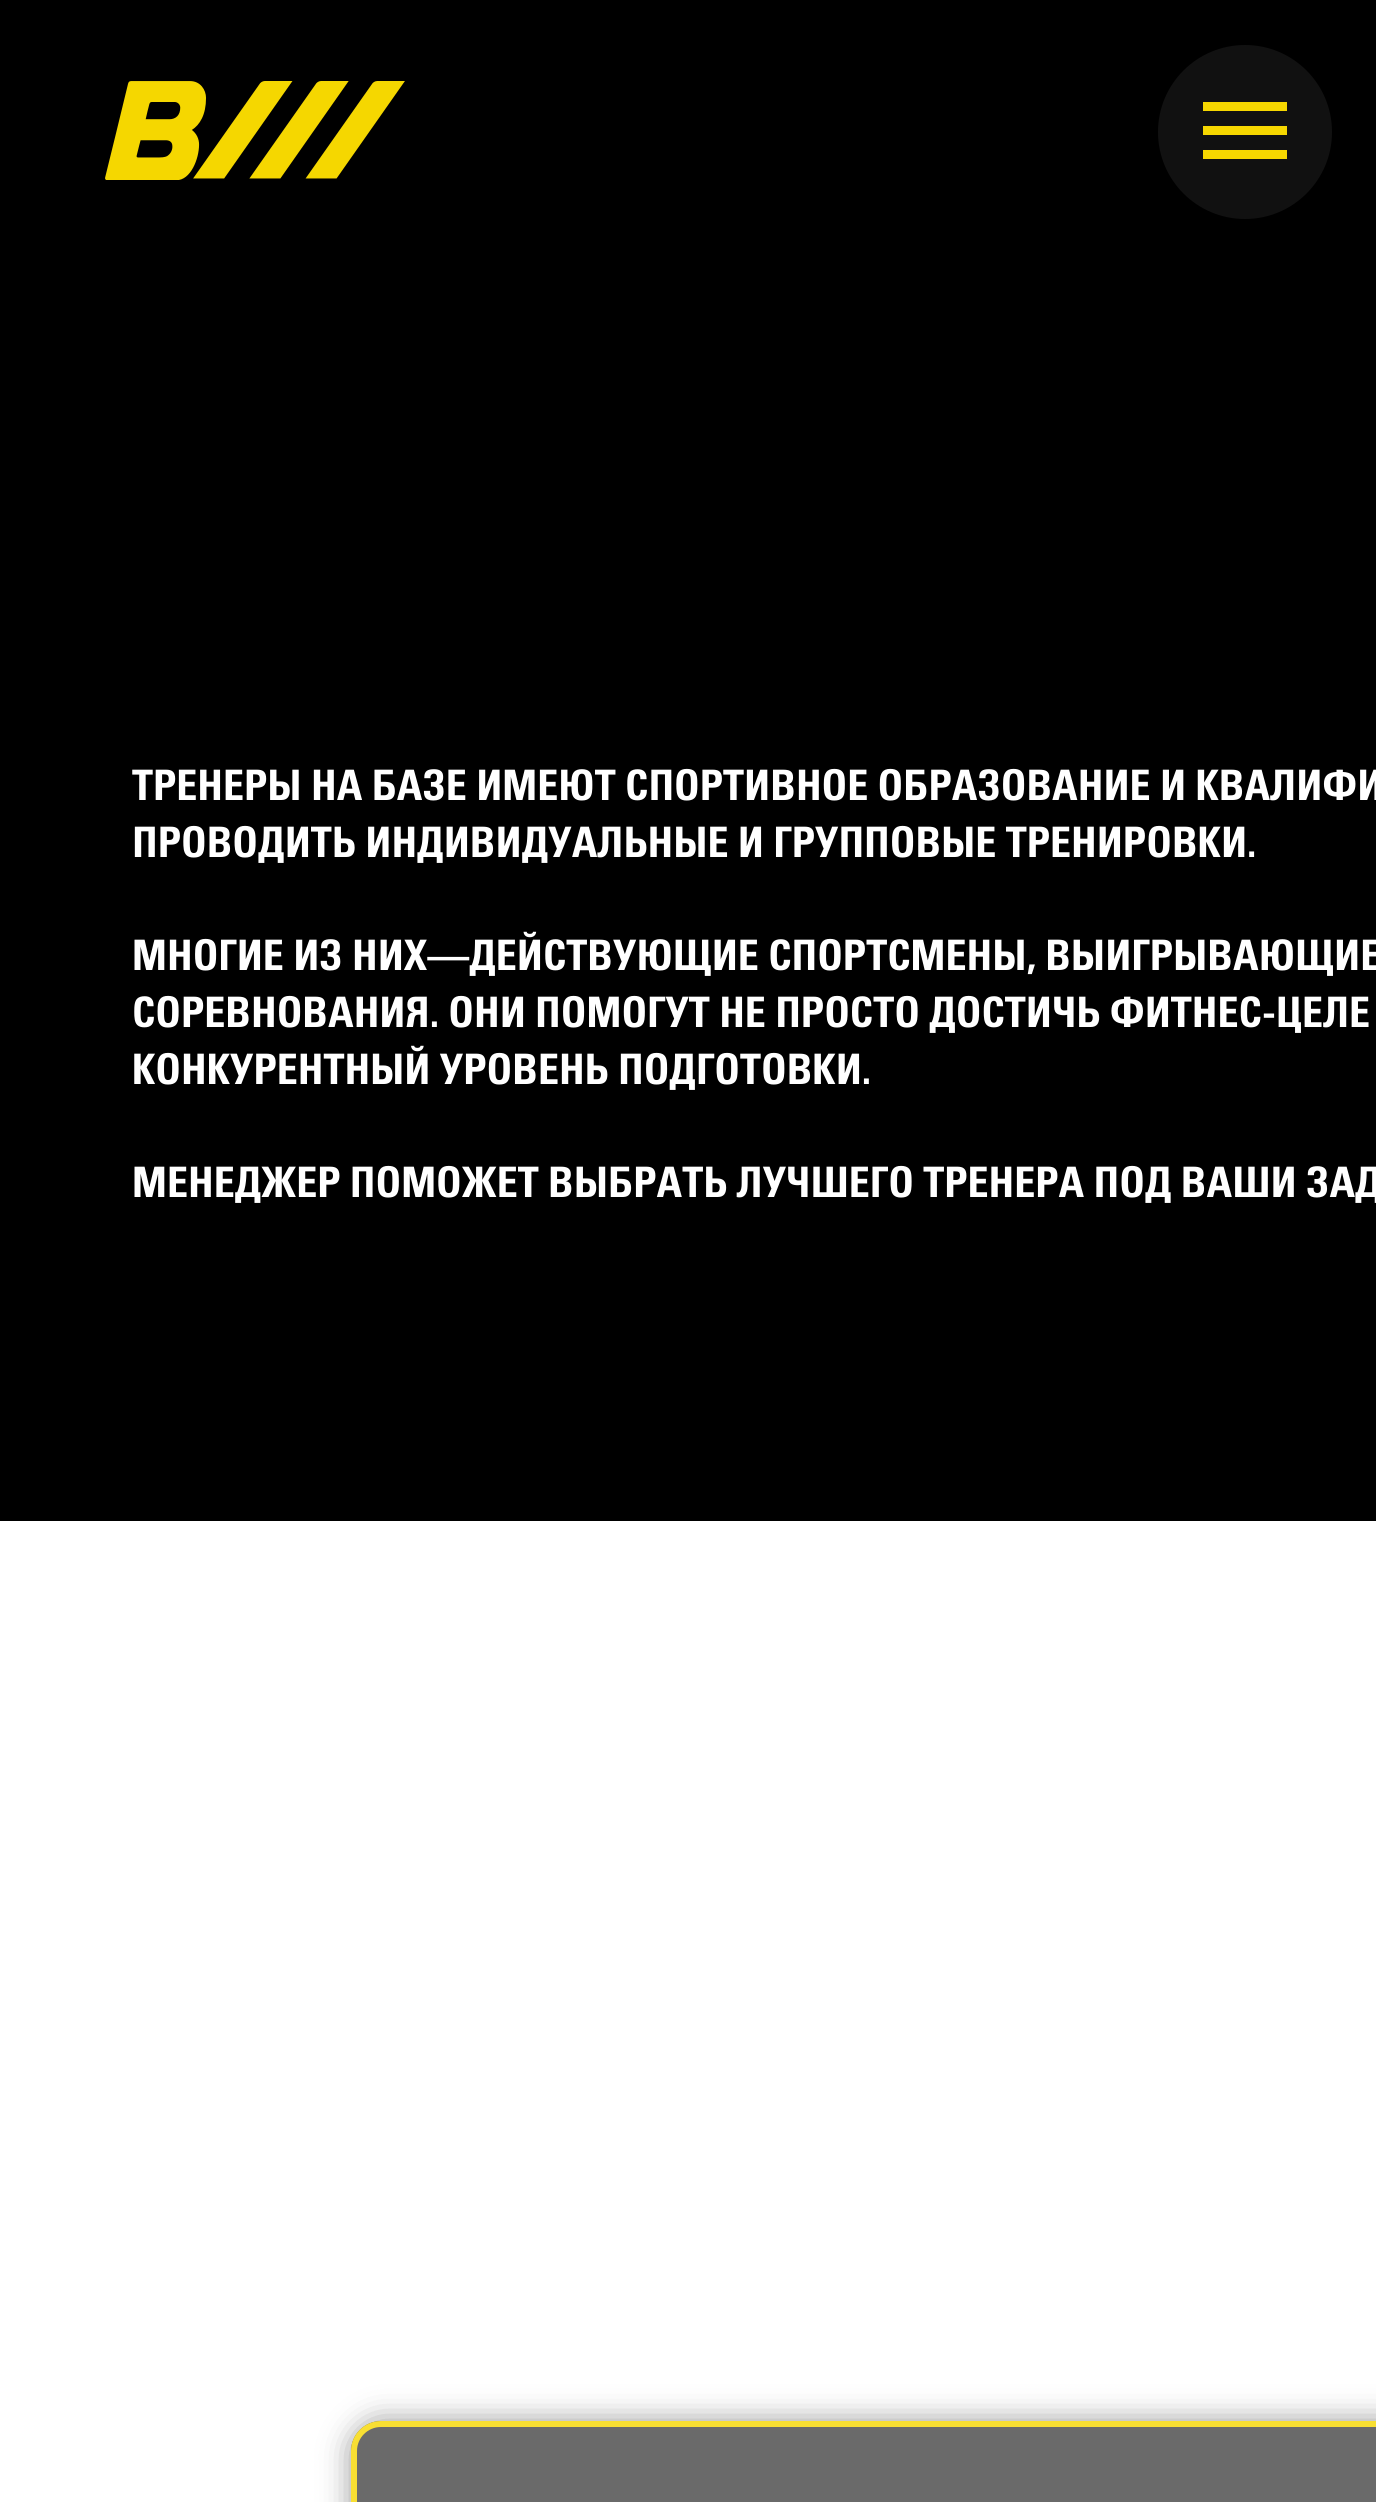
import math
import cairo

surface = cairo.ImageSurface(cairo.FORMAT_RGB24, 1376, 2502)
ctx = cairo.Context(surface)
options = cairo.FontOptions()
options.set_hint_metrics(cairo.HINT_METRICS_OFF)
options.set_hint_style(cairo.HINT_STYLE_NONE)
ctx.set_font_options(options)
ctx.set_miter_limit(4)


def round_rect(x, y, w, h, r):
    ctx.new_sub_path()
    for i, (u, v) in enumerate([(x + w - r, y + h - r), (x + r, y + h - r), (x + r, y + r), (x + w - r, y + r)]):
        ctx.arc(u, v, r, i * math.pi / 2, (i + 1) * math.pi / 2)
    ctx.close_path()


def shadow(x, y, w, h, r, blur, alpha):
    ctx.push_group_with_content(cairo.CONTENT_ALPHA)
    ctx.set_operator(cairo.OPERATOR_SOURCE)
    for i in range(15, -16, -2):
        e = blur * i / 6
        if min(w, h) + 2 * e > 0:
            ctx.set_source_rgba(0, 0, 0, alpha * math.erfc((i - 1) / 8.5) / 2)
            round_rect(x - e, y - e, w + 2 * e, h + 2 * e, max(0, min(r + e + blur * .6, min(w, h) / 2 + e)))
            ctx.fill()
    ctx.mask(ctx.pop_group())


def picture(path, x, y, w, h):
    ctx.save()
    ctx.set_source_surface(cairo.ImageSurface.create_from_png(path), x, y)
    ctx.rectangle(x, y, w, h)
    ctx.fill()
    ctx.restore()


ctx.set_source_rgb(1, 1, 1)
ctx.paint()
ctx.set_source_rgb(0, 0, 0)
ctx.rectangle(0, 0, 1376, 1521)
ctx.fill()
picture("img1.png", 105, 81, 300, 99)
ctx.set_source_rgb(0.067, 0.067, 0.067)
ctx.arc(1245, 132, 87, 0, 2 * math.pi)
ctx.fill()
ctx.set_source_rgb(0.961, 0.843, 0)
ctx.rectangle(1203, 102, 84, 9)
ctx.fill()
ctx.rectangle(1203, 126, 84, 9)
ctx.fill()
ctx.rectangle(1203, 150, 84, 9)
ctx.fill()
ctx.select_font_face("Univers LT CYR", cairo.FONT_SLANT_NORMAL, cairo.FONT_WEIGHT_BOLD)
ctx.set_font_size(42)
ctx.set_source_rgb(1, 1, 1)
ctx.move_to(132, 800)
ctx.show_text("ТРЕНЕРЫ НА БАЗЕ ИМЕЮТ СПОРТИВНОЕ ОБРАЗОВАНИЕ И КВАЛИФИ")
ctx.move_to(132, 857)
ctx.show_text("ПРОВОДИТЬ ИНДИВИДУАЛЬНЫЕ И ГРУППОВЫЕ ТРЕНИРОВКИ.")
ctx.move_to(132, 970)
ctx.show_text("МНОГИЕ ИЗ НИХ—ДЕЙСТВУЮЩИЕ СПОРТСМЕНЫ, ВЫИГРЫВАЮЩИЕ")
ctx.move_to(132, 1027)
ctx.show_text("СОРЕВНОВАНИЯ. ОНИ ПОМОГУТ НЕ ПРОСТО ДОСТИЧЬ ФИТНЕС-ЦЕЛЕ")
ctx.move_to(132, 1084)
ctx.show_text("КОНКУРЕНТНЫЙ УРОВЕНЬ ПОДГОТОВКИ.")
ctx.move_to(132, 1197)
ctx.show_text("МЕНЕДЖЕР ПОМОЖЕТ ВЫБРАТЬ ЛУЧШЕГО ТРЕНЕРА ПОД ВАШИ ЗАД")
ctx.set_source_rgb(0.2, 0.2, 0.2)
shadow(351, 2421, 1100, 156, 30, 15, 0.5)
ctx.set_source_rgb(0.416, 0.416, 0.416)
ctx.new_path()
ctx.move_to(381, 2421)
ctx.line_to(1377, 2421)
ctx.line_to(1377, 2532)
ctx.line_to(381, 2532)
ctx.curve_to(364.5, 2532, 351, 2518.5, 351, 2502)
ctx.line_to(351, 2451)
ctx.curve_to(351, 2434.5, 364.5, 2421, 381, 2421)
ctx.close_path()
ctx.fill()
round_rect(354, 2424, 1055, 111, 27)
ctx.set_source_rgb(0.969, 0.875, 0.2)
ctx.set_line_width(6)
ctx.stroke()
surface.write_to_png("page.png")
